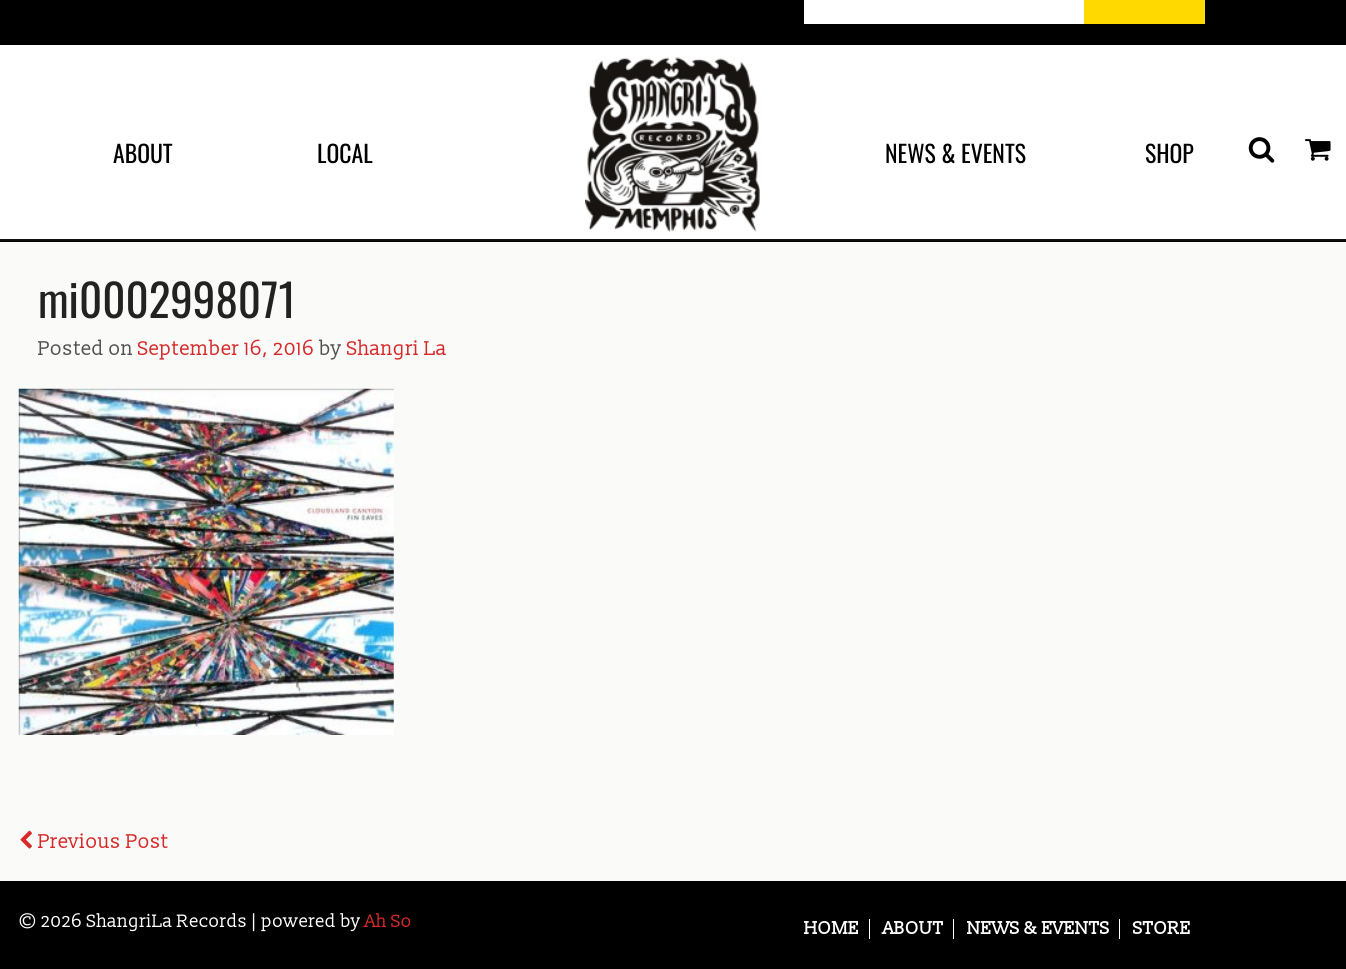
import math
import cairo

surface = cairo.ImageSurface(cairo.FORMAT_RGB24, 1346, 969)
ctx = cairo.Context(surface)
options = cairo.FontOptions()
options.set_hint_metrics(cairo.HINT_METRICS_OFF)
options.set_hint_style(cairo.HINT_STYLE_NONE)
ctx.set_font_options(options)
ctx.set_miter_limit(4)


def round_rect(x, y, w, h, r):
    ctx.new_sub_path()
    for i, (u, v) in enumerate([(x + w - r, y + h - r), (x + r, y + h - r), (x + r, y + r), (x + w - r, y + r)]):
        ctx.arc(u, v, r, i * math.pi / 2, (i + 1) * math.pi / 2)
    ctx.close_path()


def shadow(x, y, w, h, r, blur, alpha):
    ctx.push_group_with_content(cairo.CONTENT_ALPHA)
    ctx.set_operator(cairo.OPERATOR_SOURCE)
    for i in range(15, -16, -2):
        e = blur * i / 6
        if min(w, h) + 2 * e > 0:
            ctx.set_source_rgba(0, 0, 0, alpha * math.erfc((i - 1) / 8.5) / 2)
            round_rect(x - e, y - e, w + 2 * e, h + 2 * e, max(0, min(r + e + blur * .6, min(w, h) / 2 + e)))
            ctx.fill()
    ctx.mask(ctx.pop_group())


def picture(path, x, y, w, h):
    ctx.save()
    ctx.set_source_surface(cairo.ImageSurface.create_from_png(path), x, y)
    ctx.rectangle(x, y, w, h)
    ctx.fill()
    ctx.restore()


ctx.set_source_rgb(0.98, 0.98, 0.976)
ctx.paint()
ctx.set_source_rgb(0, 0, 0)
ctx.rectangle(0, 239, 1346, 3)
ctx.fill()
ctx.rectangle(0, 0, 1346, 45)
ctx.fill()
ctx.set_source_rgb(1, 1, 1)
ctx.rectangle(804, 0, 280, 24)
ctx.fill()
ctx.set_source_rgb(1, 0.851, 0)
ctx.rectangle(1084, 0, 121, 24)
ctx.fill()
ctx.set_source_rgb(0.745, 0.757, 0.761)
shadow(0, 48, 1346, 193, 0, 1, 0.1)
ctx.set_source_rgb(1, 1, 1)
ctx.rectangle(0, 45, 1346, 194)
ctx.fill()
ctx.select_font_face("Oswald")
ctx.set_font_size(23.75)
ctx.set_source_rgb(0, 0, 0)
ctx.move_to(113, 163)
ctx.show_text("ABOUT")
ctx.move_to(317, 163)
ctx.show_text("LOCAL")
picture("img1.png", 585, 57, 175, 175)
ctx.move_to(885, 163)
ctx.show_text("NEWS & EVENTS")
ctx.move_to(1145, 163)
ctx.show_text("SHOP")
picture("img2.png", 1248, 137, 27, 26)
picture("img3.png", 1305, 139, 26, 22)
ctx.set_font_size(45)
ctx.set_source_rgb(0.133, 0.133, 0.133)
ctx.move_to(38, 318)
ctx.show_text("mi0002998071")
ctx.select_font_face("Slabo 13px")
ctx.set_font_size(20)
ctx.set_source_rgb(0.325, 0.322, 0.322)
ctx.move_to(38, 355)
ctx.show_text("Posted on")
ctx.set_source_rgb(0.839, 0.161, 0.161)
ctx.move_to(138, 355)
ctx.show_text("September 16, 2016")
ctx.set_source_rgb(0.325, 0.322, 0.322)
ctx.move_to(319, 355)
ctx.show_text("by")
ctx.set_source_rgb(0.839, 0.161, 0.161)
ctx.move_to(347, 355)
ctx.show_text("Shangri La")
picture("img4.png", 18, 388, 376, 347)
picture("img5.png", 20, 830, 12, 19)
ctx.move_to(38, 848)
ctx.show_text("Previous Post")
ctx.set_source_rgb(0, 0, 0)
ctx.rectangle(0, 881, 1346, 88)
ctx.fill()
ctx.set_font_size(18)
ctx.set_source_rgb(1, 1, 1)
ctx.move_to(19, 927)
ctx.show_text("© 2026 ShangriLa Records | powered by")
ctx.set_source_rgb(0.839, 0.161, 0.161)
ctx.move_to(365, 927)
ctx.show_text("Ah So")
ctx.set_source_rgb(1, 1, 1)
ctx.rectangle(869, 919, 1, 20)
ctx.fill()
ctx.select_font_face("Slabo 13px", cairo.FONT_SLANT_NORMAL, cairo.FONT_WEIGHT_BOLD)
ctx.move_to(804, 934)
ctx.show_text("HOME")
ctx.rectangle(953, 919, 1, 20)
ctx.fill()
ctx.move_to(883, 934)
ctx.show_text("ABOUT")
ctx.rectangle(1119, 919, 1, 20)
ctx.fill()
ctx.move_to(967, 934)
ctx.show_text("NEWS & EVENTS")
ctx.move_to(1133, 934)
ctx.show_text("STORE")
surface.write_to_png("page.png")
